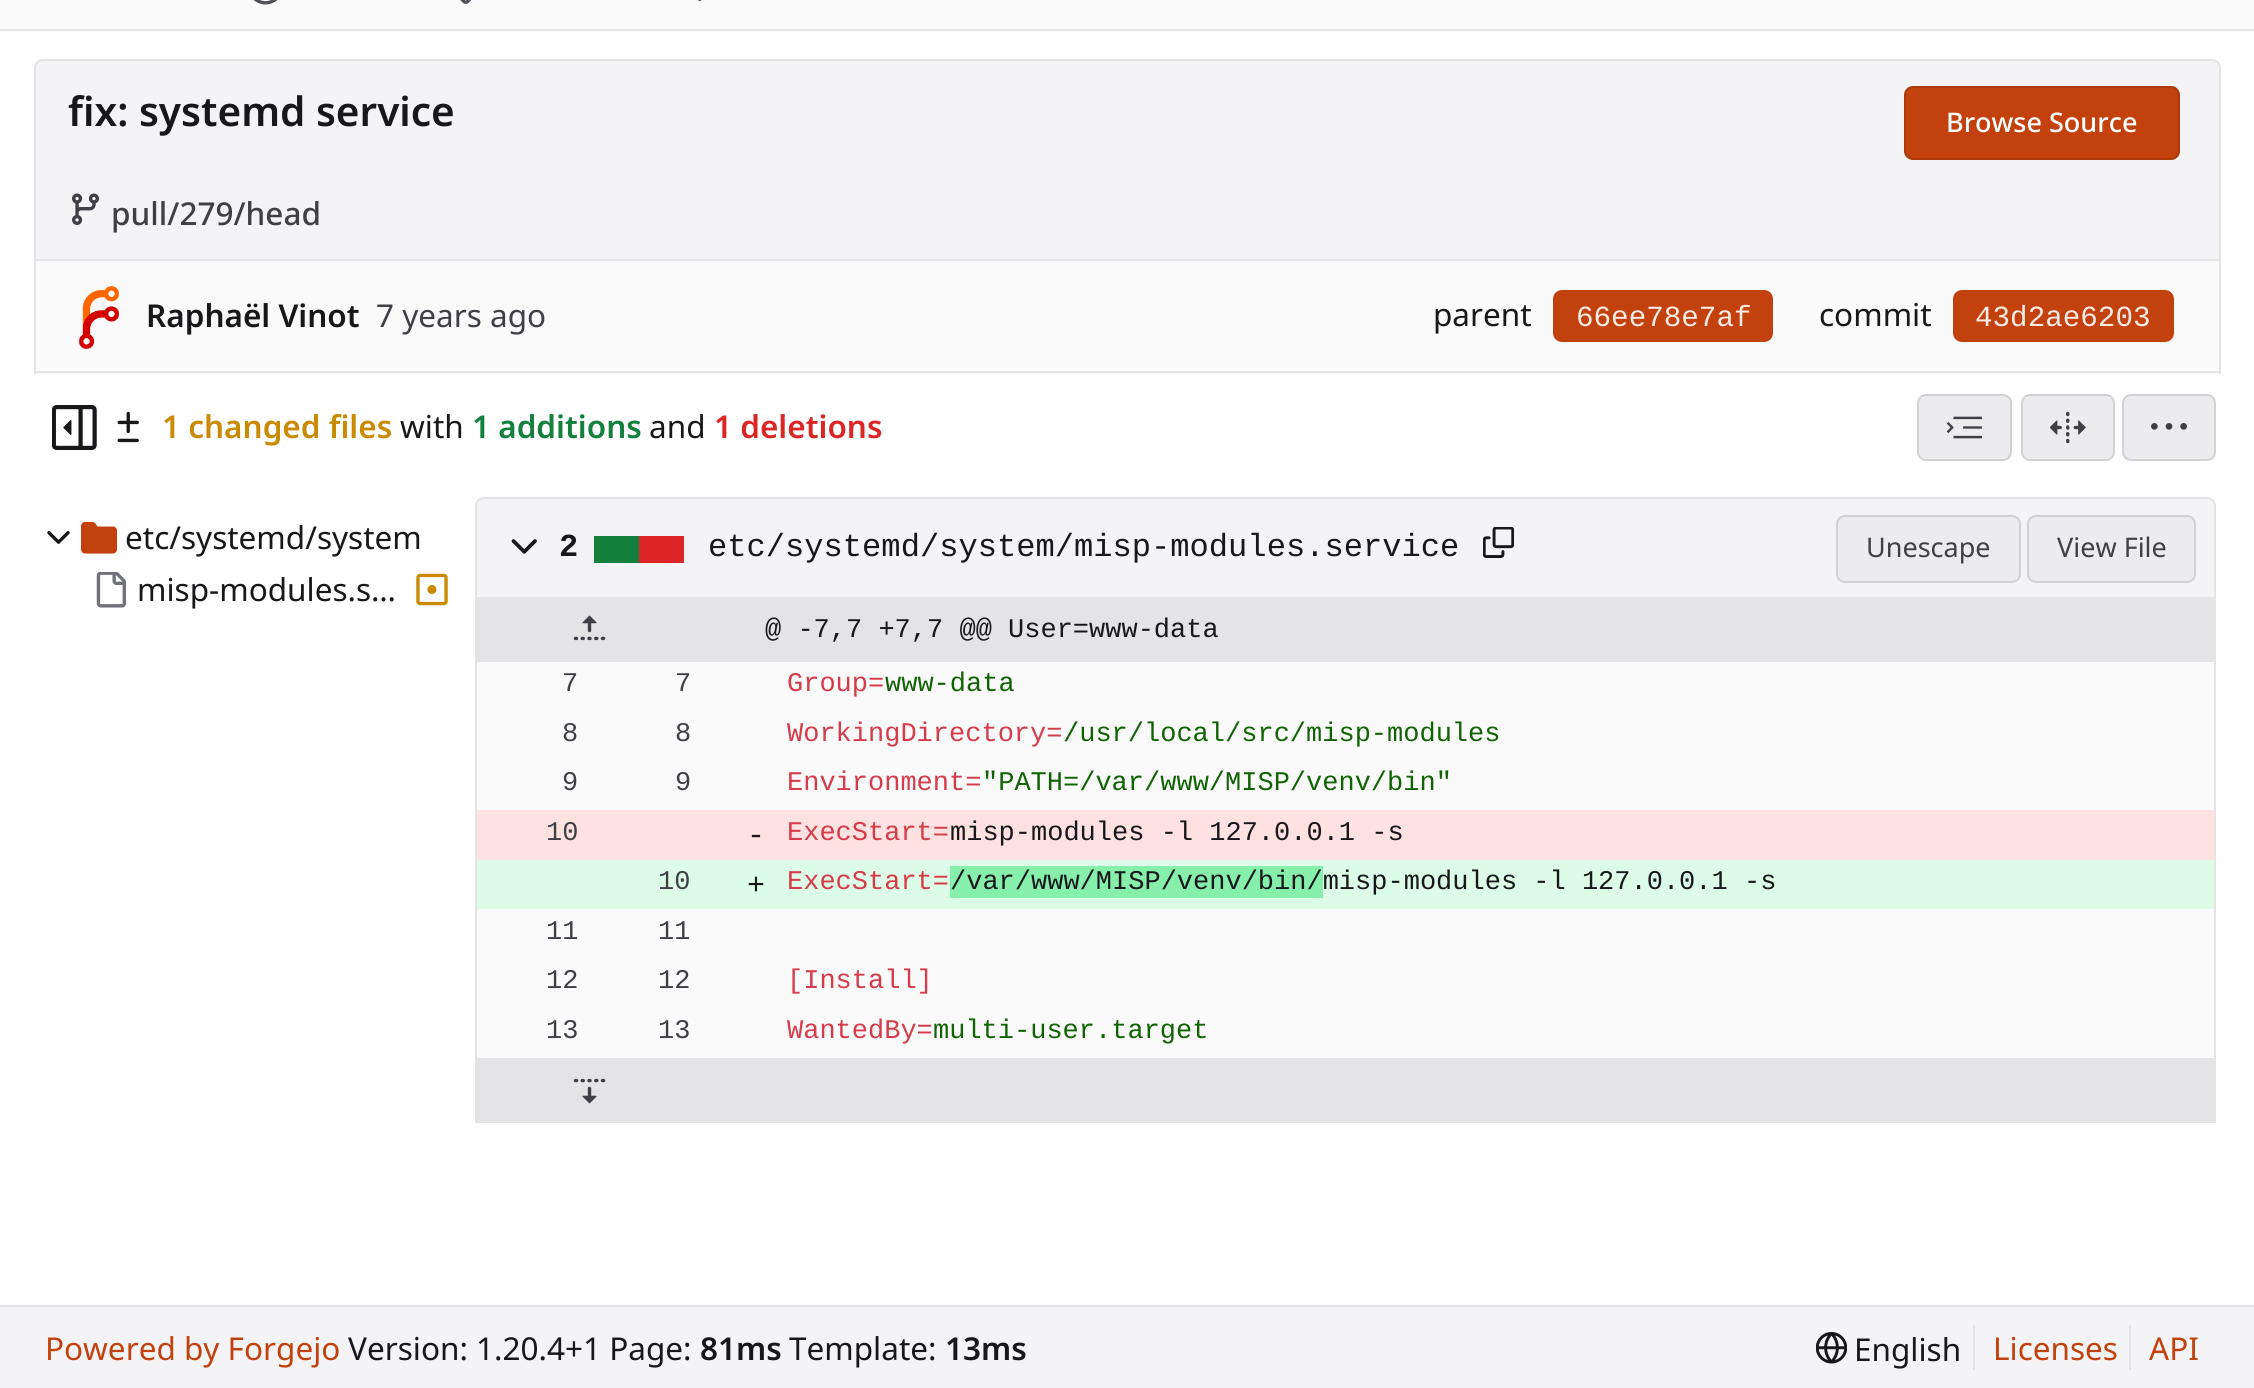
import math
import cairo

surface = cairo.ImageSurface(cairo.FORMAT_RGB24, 2254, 1388)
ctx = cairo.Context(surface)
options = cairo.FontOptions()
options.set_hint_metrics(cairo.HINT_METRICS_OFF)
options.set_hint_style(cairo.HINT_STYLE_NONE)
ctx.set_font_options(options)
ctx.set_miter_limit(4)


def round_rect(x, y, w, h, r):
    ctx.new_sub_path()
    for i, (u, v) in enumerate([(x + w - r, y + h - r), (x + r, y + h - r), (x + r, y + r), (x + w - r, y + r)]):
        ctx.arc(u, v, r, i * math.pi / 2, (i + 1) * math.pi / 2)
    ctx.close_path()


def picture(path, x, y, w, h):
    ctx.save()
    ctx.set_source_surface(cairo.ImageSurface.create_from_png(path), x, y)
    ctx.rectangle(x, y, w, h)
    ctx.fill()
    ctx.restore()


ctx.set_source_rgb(1, 1, 1)
ctx.paint()
ctx.set_source_rgb(0.98, 0.98, 0.98)
ctx.rectangle(0, 0, 2254, 32)
ctx.fill()
picture("img1.png", 253, 0, 25, 5)
picture("img2.png", 460, 0, 12, 4)
picture("img3.png", 698, 0, 4, 2)
ctx.set_source_rgb(0.894, 0.894, 0.906)
ctx.rectangle(0, 29, 2254, 2)
ctx.fill()
ctx.set_source_rgb(0.957, 0.957, 0.961)
ctx.new_path()
ctx.move_to(43, 60)
ctx.line_to(2212, 60)
ctx.curve_to(2216.5, 60, 2220, 63.5, 2220, 68)
ctx.line_to(2220, 260)
ctx.line_to(35, 260)
ctx.line_to(35, 68)
ctx.curve_to(35, 63.5, 38.5, 60, 43, 60)
ctx.close_path()
ctx.fill_preserve()
ctx.set_source_rgb(0.894, 0.894, 0.906)
ctx.stroke()
ctx.select_font_face("Noto Sans SemiBold")
ctx.set_font_size(40.5)
ctx.set_source_rgb(0.094, 0.094, 0.106)
ctx.move_to(68, 126)
ctx.show_text("fix: systemd service")
ctx.set_source_rgb(0.761, 0.255, 0.047)
round_rect(1904, 86, 276, 74, 9)
ctx.fill()
round_rect(1905, 87, 274, 72, 8)
ctx.set_source_rgba(0, 0, 0, 0.11)
ctx.stroke()
ctx.select_font_face("Noto Sans Medium")
ctx.set_font_size(27)
ctx.set_source_rgb(1, 1, 1)
ctx.move_to(1946, 132)
ctx.show_text("Browse Source")
picture("img4.png", 72, 193, 27, 32)
ctx.set_font_size(31.5)
ctx.set_source_rgb(0.247, 0.247, 0.275)
ctx.move_to(111, 225)
ctx.show_text("pull/279/head")
ctx.set_source_rgb(0.98, 0.98, 0.98)
ctx.rectangle(36, 261, 2183, 113)
ctx.fill()
ctx.set_source_rgb(0.894, 0.894, 0.906)
ctx.rectangle(2219, 261, 2, 113)
ctx.fill()
ctx.rectangle(34, 371, 2187, 2)
ctx.fill()
ctx.rectangle(34, 261, 2, 113)
ctx.fill()
picture("img5.png", 79, 286, 40, 63)
ctx.select_font_face("Noto Sans SemiBold")
ctx.set_source_rgb(0.094, 0.094, 0.106)
ctx.move_to(146, 327)
ctx.show_text("Raphaël Vinot")
ctx.select_font_face("Noto Sans")
ctx.set_source_rgb(0.247, 0.247, 0.275)
ctx.move_to(376, 327)
ctx.show_text("7 years ago")
ctx.set_source_rgb(0.094, 0.094, 0.106)
ctx.move_to(1433, 326)
ctx.show_text("parent")
ctx.set_source_rgb(0.761, 0.255, 0.047)
round_rect(1553, 290, 220, 52, 9)
ctx.fill()
ctx.select_font_face("Liberation Mono")
ctx.set_font_size(29.25)
ctx.set_source_rgb(0.976, 0.925, 0.906)
ctx.move_to(1576, 326)
ctx.show_text("66ee78e7af")
ctx.select_font_face("Noto Sans")
ctx.set_font_size(31.5)
ctx.set_source_rgb(0.094, 0.094, 0.106)
ctx.move_to(1819, 326)
ctx.show_text("commit")
ctx.set_source_rgb(0.761, 0.255, 0.047)
round_rect(1953, 290, 221, 52, 9)
ctx.fill()
ctx.select_font_face("Liberation Mono")
ctx.set_font_size(29.25)
ctx.set_source_rgb(0.976, 0.925, 0.906)
ctx.move_to(1975, 326)
ctx.show_text("43d2ae6203")
picture("img6.png", 52, 405, 45, 45)
picture("img7.png", 117, 411, 22, 32)
ctx.select_font_face("Noto Sans SemiBold")
ctx.set_font_size(31.5)
ctx.set_source_rgb(0.792, 0.541, 0.016)
ctx.move_to(162, 438)
ctx.show_text("1 changed files")
ctx.select_font_face("Noto Sans")
ctx.set_source_rgb(0.094, 0.094, 0.106)
ctx.move_to(400, 438)
ctx.show_text("with")
ctx.select_font_face("Noto Sans SemiBold")
ctx.set_source_rgb(0.082, 0.502, 0.239)
ctx.move_to(472, 438)
ctx.show_text("1 additions")
ctx.select_font_face("Noto Sans")
ctx.set_source_rgb(0.094, 0.094, 0.106)
ctx.move_to(649, 438)
ctx.show_text("and")
ctx.select_font_face("Noto Sans SemiBold")
ctx.set_source_rgb(0.863, 0.149, 0.149)
ctx.move_to(714, 438)
ctx.show_text("1 deletions")
ctx.set_source_rgb(0.925, 0.925, 0.933)
round_rect(1917, 394, 95, 67, 9)
ctx.fill()
round_rect(1918, 395, 93, 65, 8)
ctx.set_source_rgba(0, 0, 0, 0.11)
ctx.stroke()
picture("img8.png", 1946, 416, 36, 23)
ctx.set_source_rgb(0.925, 0.925, 0.933)
round_rect(2021, 394, 94, 67, 9)
ctx.fill()
round_rect(2022, 395, 92, 65, 8)
ctx.set_source_rgba(0, 0, 0, 0.11)
ctx.stroke()
picture("img9.png", 2050, 411, 36, 33)
ctx.set_source_rgb(0.925, 0.925, 0.933)
round_rect(2122, 394, 94, 67, 9)
ctx.fill()
round_rect(2123, 395, 92, 65, 8)
ctx.set_source_rgba(0, 0, 0, 0.11)
ctx.stroke()
picture("img10.png", 2151, 423, 36, 7)
picture("img11.png", 47, 531, 23, 13)
picture("img12.png", 81, 522, 36, 32)
ctx.select_font_face("Noto Sans")
ctx.set_source_rgb(0.094, 0.094, 0.106)
ctx.move_to(125, 549)
ctx.show_text("etc/systemd/system")
picture("img13.png", 96, 572, 30, 36)
ctx.move_to(137, 601)
ctx.show_text("misp-modules.s…")
picture("img14.png", 416, 573, 32, 33)
ctx.set_source_rgb(0.957, 0.957, 0.961)
ctx.new_path()
ctx.move_to(484, 498)
ctx.line_to(2207, 498)
ctx.curve_to(2211.5, 498, 2215, 501.5, 2215, 506)
ctx.line_to(2215, 598)
ctx.line_to(476, 598)
ctx.line_to(476, 506)
ctx.curve_to(476, 501.5, 479.5, 498, 484, 498)
ctx.close_path()
ctx.fill_preserve()
ctx.set_source_rgb(0.894, 0.894, 0.906)
ctx.stroke()
picture("img15.png", 511, 539, 26, 15)
ctx.select_font_face("Liberation Mono", cairo.FONT_SLANT_NORMAL, cairo.FONT_WEIGHT_BOLD)
ctx.set_font_size(32.1)
ctx.set_source_rgb(0.094, 0.094, 0.106)
ctx.move_to(559, 556)
ctx.show_text("2")
ctx.set_source_rgb(0.863, 0.149, 0.149)
ctx.rectangle(639, 536, 45, 27)
ctx.fill()
ctx.set_source_rgb(0.082, 0.502, 0.239)
ctx.rectangle(594, 536, 45, 27)
ctx.fill()
ctx.select_font_face("Liberation Mono")
ctx.set_source_rgb(0.094, 0.094, 0.106)
ctx.move_to(708, 556)
ctx.show_text("etc/systemd/system/misp-modules.service")
picture("img16.png", 1483, 527, 31, 31)
ctx.set_source_rgb(0.925, 0.925, 0.933)
round_rect(1836, 515, 185, 68, 9)
ctx.fill()
round_rect(1837, 516, 183, 66, 8)
ctx.set_source_rgba(0, 0, 0, 0.11)
ctx.stroke()
ctx.select_font_face("Noto Sans")
ctx.set_font_size(27)
ctx.set_source_rgb(0.247, 0.247, 0.275)
ctx.move_to(1866, 557)
ctx.show_text("Unescape")
ctx.set_source_rgb(0.925, 0.925, 0.933)
round_rect(2027, 515, 169, 68, 9)
ctx.fill()
round_rect(2028, 516, 167, 66, 8)
ctx.set_source_rgba(0, 0, 0, 0.11)
ctx.stroke()
ctx.set_source_rgb(0.247, 0.247, 0.275)
ctx.move_to(2057, 557)
ctx.show_text("View File")
ctx.set_source_rgb(0.98, 0.98, 0.98)
ctx.rectangle(477, 662, 1737, 396)
ctx.fill()
ctx.set_source_rgb(0.894, 0.894, 0.906)
ctx.rectangle(2214, 599, 2, 524)
ctx.fill()
ctx.rectangle(475, 1121, 1741, 2)
ctx.fill()
ctx.rectangle(475, 599, 2, 524)
ctx.fill()
ctx.rectangle(477, 599, 1737, 63)
ctx.fill()
picture("img17.png", 573, 615, 33, 26)
ctx.select_font_face("Liberation Mono")
ctx.set_source_rgb(0.094, 0.094, 0.106)
ctx.move_to(765, 637)
ctx.show_text("@ -7,7 +7,7 @@ User=www-data")
ctx.set_source_rgb(0.247, 0.247, 0.275)
ctx.move_to(562, 691)
ctx.show_text("7")
ctx.move_to(675, 691)
ctx.show_text("7")
ctx.set_source_rgb(0.843, 0.227, 0.286)
ctx.move_to(787, 691)
ctx.show_text("Group=")
ctx.set_source_rgb(0.063, 0.388, 0.012)
ctx.move_to(885, 691)
ctx.show_text("www-data")
ctx.set_source_rgb(0.247, 0.247, 0.275)
ctx.move_to(562, 741)
ctx.show_text("8")
ctx.move_to(675, 741)
ctx.show_text("8")
ctx.set_source_rgb(0.843, 0.227, 0.286)
ctx.move_to(787, 741)
ctx.show_text("WorkingDirectory=")
ctx.set_source_rgb(0.063, 0.388, 0.012)
ctx.move_to(1063, 741)
ctx.show_text("/usr/local/src/misp-modules")
ctx.set_source_rgb(0.247, 0.247, 0.275)
ctx.move_to(562, 790)
ctx.show_text("9")
ctx.move_to(675, 790)
ctx.show_text("9")
ctx.set_source_rgb(0.843, 0.227, 0.286)
ctx.move_to(787, 790)
ctx.show_text("Environment=")
ctx.set_source_rgb(0.063, 0.388, 0.012)
ctx.move_to(982, 790)
ctx.show_text("\"PATH=/var/www/MISP/venv/bin\"")
ctx.set_source_rgb(0.996, 0.886, 0.886)
ctx.rectangle(477, 810, 1737, 50)
ctx.fill()
ctx.set_source_rgb(0.247, 0.247, 0.275)
ctx.move_to(546, 840)
ctx.show_text("10")
ctx.set_font_size(30)
ctx.set_source_rgb(0.094, 0.094, 0.106)
ctx.move_to(747, 844)
ctx.show_text("-")
ctx.set_font_size(27)
ctx.set_source_rgb(0.843, 0.227, 0.286)
ctx.move_to(787, 840)
ctx.show_text("ExecStart=")
ctx.set_source_rgb(0.094, 0.094, 0.106)
ctx.move_to(950, 840)
ctx.show_text("misp-modules -l 127.0.0.1 -s")
ctx.set_source_rgb(0.863, 0.988, 0.906)
ctx.rectangle(477, 860, 1737, 49)
ctx.fill()
ctx.set_source_rgb(0.247, 0.247, 0.275)
ctx.move_to(658, 889)
ctx.show_text("10")
ctx.set_font_size(30)
ctx.set_source_rgb(0.094, 0.094, 0.106)
ctx.move_to(747, 894)
ctx.show_text("+")
ctx.set_font_size(27)
ctx.set_source_rgb(0.843, 0.227, 0.286)
ctx.move_to(787, 889)
ctx.show_text("ExecStart=")
ctx.set_source_rgb(0.525, 0.937, 0.675)
ctx.rectangle(950, 866, 373, 32)
ctx.fill()
ctx.set_source_rgb(0.094, 0.094, 0.106)
ctx.move_to(950, 889)
ctx.show_text("/var/www/MISP/venv/bin/misp-modules -l 127.0.0.1 -s")
ctx.set_source_rgb(0.247, 0.247, 0.275)
ctx.move_to(546, 939)
ctx.show_text("11")
ctx.move_to(658, 939)
ctx.show_text("11")
ctx.move_to(546, 988)
ctx.show_text("12")
ctx.move_to(658, 988)
ctx.show_text("12")
ctx.set_source_rgb(0.843, 0.227, 0.286)
ctx.move_to(787, 988)
ctx.show_text("[Install]")
ctx.set_source_rgb(0.247, 0.247, 0.275)
ctx.move_to(546, 1038)
ctx.show_text("13")
ctx.move_to(658, 1038)
ctx.show_text("13")
ctx.set_source_rgb(0.843, 0.227, 0.286)
ctx.move_to(787, 1038)
ctx.show_text("WantedBy=")
ctx.set_source_rgb(0.063, 0.388, 0.012)
ctx.move_to(933, 1038)
ctx.show_text("multi-user.target")
ctx.set_source_rgb(0.894, 0.894, 0.906)
ctx.rectangle(477, 1058, 1737, 63)
ctx.fill()
picture("img18.png", 573, 1078, 33, 26)
ctx.set_source_rgb(0.957, 0.957, 0.961)
ctx.rectangle(0, 1307, 2254, 81)
ctx.fill()
ctx.set_source_rgb(0.894, 0.894, 0.906)
ctx.rectangle(0, 1305, 2254, 2)
ctx.fill()
ctx.select_font_face("Noto Sans")
ctx.set_font_size(31.5)
ctx.set_source_rgb(0.761, 0.255, 0.047)
ctx.move_to(45, 1360)
ctx.show_text("Powered by Forgejo")
ctx.set_source_rgb(0.094, 0.094, 0.106)
ctx.move_to(348, 1360)
ctx.show_text("Version: 1.20.4+1 Page:")
ctx.select_font_face("Noto Sans SemiBold")
ctx.move_to(700, 1360)
ctx.show_text("81ms")
ctx.select_font_face("Noto Sans")
ctx.move_to(789, 1360)
ctx.show_text("Template:")
ctx.select_font_face("Noto Sans SemiBold")
ctx.move_to(945, 1360)
ctx.show_text("13ms")
picture("img19.png", 1816, 1332, 31, 32)
ctx.select_font_face("Noto Sans")
ctx.move_to(1854, 1361)
ctx.show_text("English")
ctx.set_source_rgb(0.894, 0.894, 0.906)
ctx.rectangle(1973, 1325, 2, 45)
ctx.fill()
ctx.set_source_rgb(0.761, 0.255, 0.047)
ctx.move_to(1993, 1360)
ctx.show_text("Licenses")
ctx.set_source_rgb(0.894, 0.894, 0.906)
ctx.rectangle(2129, 1325, 2, 45)
ctx.fill()
ctx.set_source_rgb(0.761, 0.255, 0.047)
ctx.move_to(2149, 1360)
ctx.show_text("API")
surface.write_to_png("page.png")
